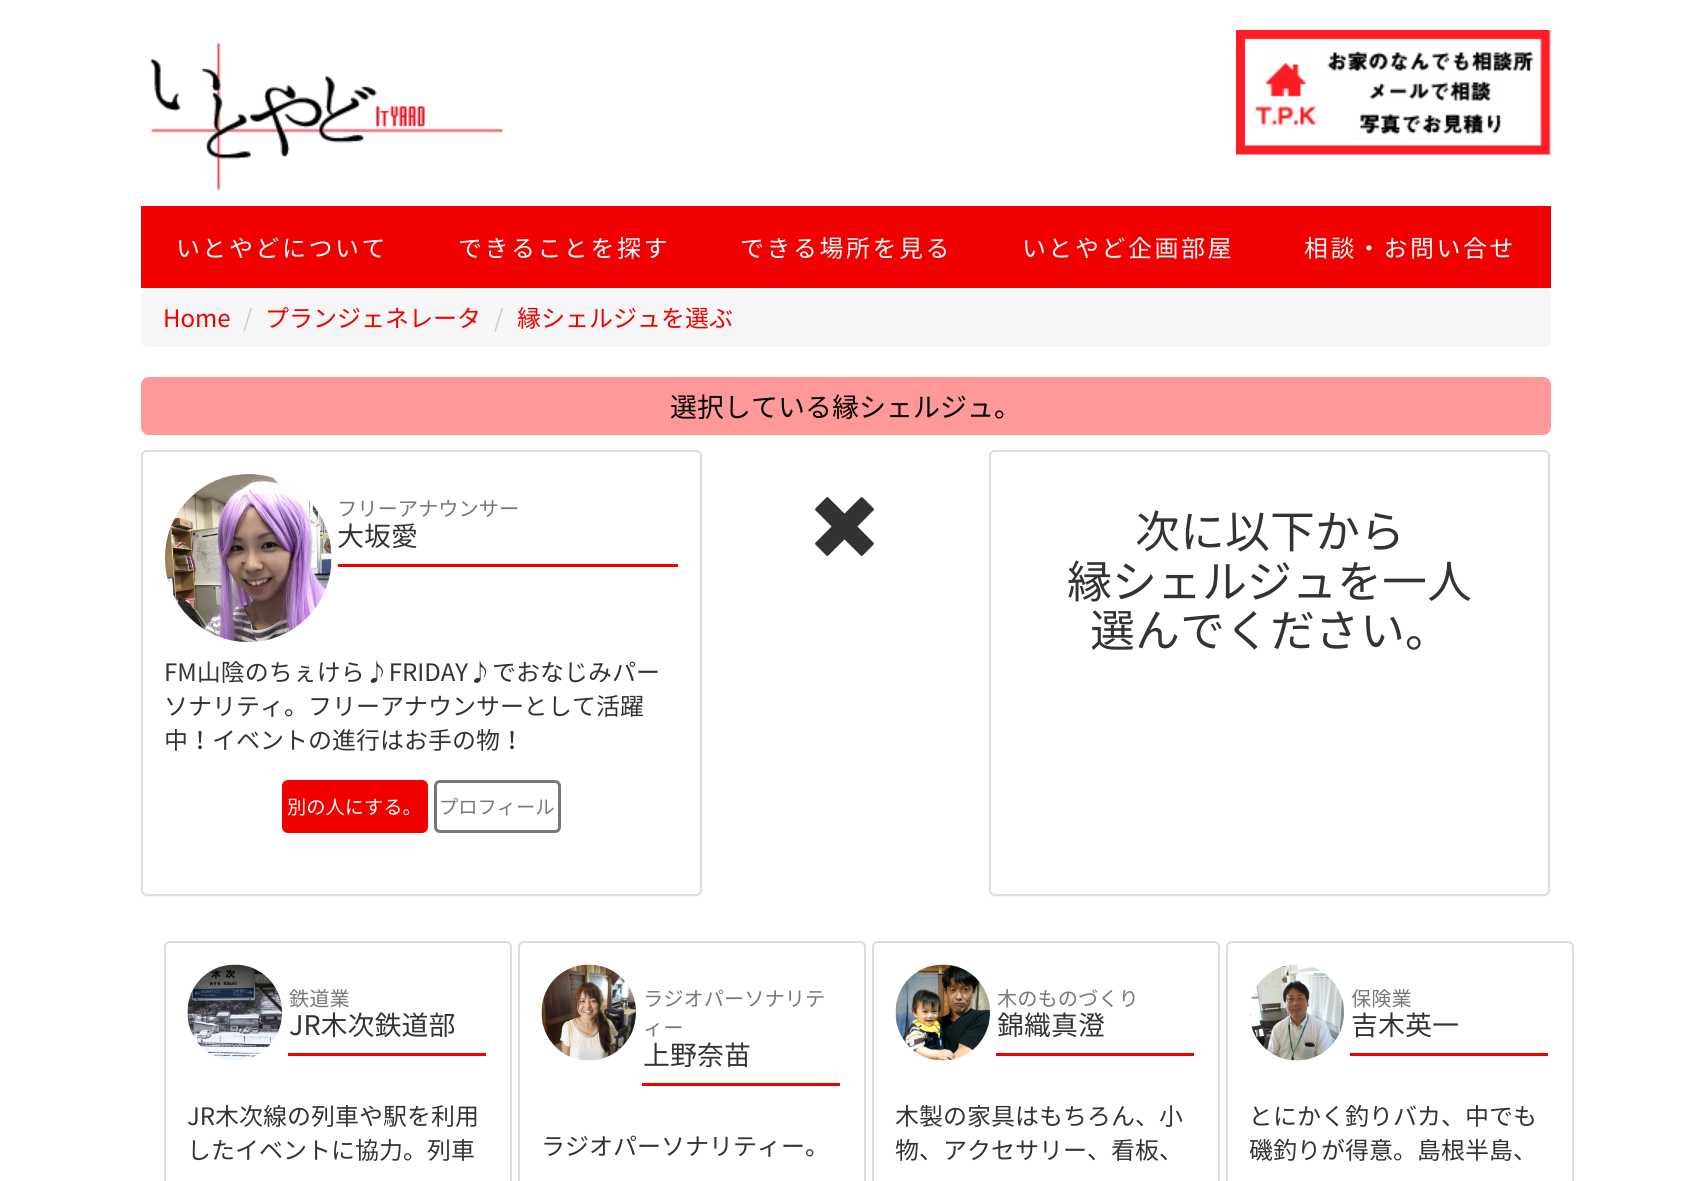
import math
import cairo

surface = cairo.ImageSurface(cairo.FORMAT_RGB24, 1690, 1181)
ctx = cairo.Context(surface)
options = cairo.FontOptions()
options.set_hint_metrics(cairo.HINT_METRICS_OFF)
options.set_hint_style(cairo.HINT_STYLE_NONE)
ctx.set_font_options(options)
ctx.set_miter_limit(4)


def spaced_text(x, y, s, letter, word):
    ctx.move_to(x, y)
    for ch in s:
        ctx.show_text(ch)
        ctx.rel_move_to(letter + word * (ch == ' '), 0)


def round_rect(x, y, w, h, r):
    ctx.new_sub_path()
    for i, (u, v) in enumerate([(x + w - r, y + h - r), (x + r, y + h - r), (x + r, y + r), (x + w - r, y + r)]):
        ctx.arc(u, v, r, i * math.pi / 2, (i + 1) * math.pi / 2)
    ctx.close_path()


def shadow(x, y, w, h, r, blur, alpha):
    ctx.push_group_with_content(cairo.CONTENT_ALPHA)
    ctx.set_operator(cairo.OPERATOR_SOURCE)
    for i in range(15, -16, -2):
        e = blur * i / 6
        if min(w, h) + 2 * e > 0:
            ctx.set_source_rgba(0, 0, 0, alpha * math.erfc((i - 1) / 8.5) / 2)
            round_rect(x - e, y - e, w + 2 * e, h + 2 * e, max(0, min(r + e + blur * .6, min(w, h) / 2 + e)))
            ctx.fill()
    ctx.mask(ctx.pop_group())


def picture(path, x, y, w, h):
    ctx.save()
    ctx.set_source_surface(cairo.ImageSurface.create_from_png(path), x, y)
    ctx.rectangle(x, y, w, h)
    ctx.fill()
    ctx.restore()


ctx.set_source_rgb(1, 1, 1)
ctx.paint()
picture("img1.png", 150, 43, 353, 148)
picture("img2.png", 1236, 30, 315, 125)
ctx.set_source_rgb(0.941, 0, 0)
ctx.rectangle(141, 206, 1410, 82)
ctx.fill()
ctx.select_font_face("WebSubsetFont")
ctx.set_font_size(24)
ctx.set_source_rgb(1, 1, 1)
spaced_text(176, 257, "いとやどについて", 2.5, 0)
spaced_text(458, 257, "できることを探す", 2.5, 0)
spaced_text(740, 257, "できる場所を見る", 2.5, 0)
spaced_text(1022, 257, "いとやど企画部屋", 2.5, 0)
spaced_text(1304, 257, "相談・お問い合せ", 2.5, 0)
ctx.set_source_rgb(0.961, 0.961, 0.961)
round_rect(141, 288, 1410, 59, 6)
ctx.fill()
ctx.set_source_rgb(0.941, 0, 0)
ctx.move_to(163, 327)
ctx.show_text("Home")
ctx.set_source_rgb(0.8, 0.8, 0.8)
ctx.move_to(243, 327)
ctx.show_text("/")
ctx.set_source_rgb(0.941, 0, 0)
ctx.move_to(265, 327)
ctx.show_text("プランジェネレータ")
ctx.set_source_rgb(0.8, 0.8, 0.8)
ctx.move_to(494, 327)
ctx.show_text("/")
ctx.set_source_rgb(0.941, 0, 0)
ctx.move_to(517, 327)
ctx.show_text("縁シェルジュを選ぶ")
ctx.set_source_rgb(1, 0.6, 0.6)
round_rect(141, 377, 1410, 58, 8)
ctx.fill()
ctx.set_font_size(27)
ctx.set_source_rgb(0, 0, 0)
ctx.move_to(670, 417)
ctx.show_text("選択している縁シェルジュ。")
ctx.set_source_rgb(0, 0, 0)
shadow(141, 452, 561, 445, 6, 1, 0.05)
ctx.set_source_rgb(1, 1, 1)
round_rect(142, 451, 559, 444, 5)
ctx.fill_preserve()
ctx.set_source_rgb(0.867, 0.867, 0.867)
ctx.stroke()
picture("img3.png", 165, 474, 167, 168)
ctx.set_source_rgb(0.941, 0, 0)
ctx.rectangle(338, 564, 340, 3)
ctx.fill()
ctx.set_font_size(20.25)
ctx.set_source_rgb(0.471, 0.471, 0.471)
ctx.move_to(337, 516)
ctx.show_text("フリーアナウンサー")
ctx.set_font_size(27)
ctx.set_source_rgb(0.2, 0.2, 0.2)
ctx.move_to(337, 546)
ctx.show_text("大坂愛")
ctx.set_font_size(24)
ctx.move_to(164, 681)
ctx.show_text("FM山陰のちぇけら♪FRIDAY♪でおなじみパー")
ctx.move_to(164, 715)
ctx.show_text("ソナリティ。フリーアナウンサーとして活躍")
ctx.move_to(164, 749)
ctx.show_text("中！イベントの進行はお手の物！")
ctx.set_source_rgb(0.941, 0, 0)
round_rect(283.5, 781.5, 143, 50, 4.5)
ctx.fill_preserve()
ctx.set_line_width(3)
ctx.stroke()
ctx.set_font_size(19.25)
ctx.set_source_rgb(1, 1, 1)
ctx.move_to(287, 814)
ctx.show_text("別の人にする。")
round_rect(435.5, 781.5, 124, 50, 4.5)
ctx.set_source_rgb(0.471, 0.471, 0.471)
ctx.stroke()
ctx.move_to(439, 814)
ctx.show_text("プロフィール")
picture("img4.png", 815, 497, 59, 59)
ctx.set_source_rgb(0, 0, 0)
shadow(989, 452, 561, 445, 6, 1, 0.05)
ctx.set_source_rgb(1, 1, 1)
round_rect(990, 451, 559, 444, 5)
ctx.fill_preserve()
ctx.set_source_rgb(0.867, 0.867, 0.867)
ctx.set_line_width(2)
ctx.stroke()
ctx.set_font_size(45)
ctx.set_source_rgb(0.2, 0.2, 0.2)
ctx.move_to(1135, 548)
ctx.show_text("次に以下から")
ctx.move_to(1067, 598)
ctx.show_text("縁シェルジュを一人")
ctx.move_to(1090, 647)
ctx.show_text("選んでください。")
round_rect(165, 942, 346, 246, 5)
ctx.set_source_rgb(0.867, 0.867, 0.867)
ctx.stroke()
picture("img5.png", 187, 964, 95, 96)
ctx.set_source_rgb(0.941, 0, 0)
ctx.rectangle(288, 1053, 198, 3)
ctx.fill()
ctx.set_font_size(20.25)
ctx.set_source_rgb(0.471, 0.471, 0.471)
ctx.move_to(289, 1006)
ctx.show_text("鉄道業")
ctx.set_font_size(27)
ctx.set_source_rgb(0.2, 0.2, 0.2)
ctx.move_to(289, 1035)
ctx.show_text("JR木次鉄道部")
ctx.set_font_size(24)
ctx.move_to(187, 1125)
ctx.show_text("JR木次線の列車や駅を利用")
ctx.move_to(187, 1159)
ctx.show_text("したイベントに協力。列車")
round_rect(519, 942, 346, 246, 5)
ctx.set_source_rgb(0.867, 0.867, 0.867)
ctx.stroke()
picture("img6.png", 541, 964, 95, 97)
ctx.set_source_rgb(0.941, 0, 0)
ctx.rectangle(642, 1083, 198, 3)
ctx.fill()
ctx.set_font_size(20.25)
ctx.set_source_rgb(0.471, 0.471, 0.471)
ctx.move_to(643, 1006)
ctx.show_text("ラジオパーソナリテ")
ctx.move_to(643, 1035)
ctx.show_text("ィー")
ctx.set_font_size(27)
ctx.set_source_rgb(0.2, 0.2, 0.2)
ctx.move_to(643, 1065)
ctx.show_text("上野奈苗")
ctx.set_font_size(24)
ctx.move_to(541, 1155)
ctx.show_text("ラジオパーソナリティー。")
round_rect(873, 942, 346, 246, 5)
ctx.set_source_rgb(0.867, 0.867, 0.867)
ctx.stroke()
picture("img7.png", 895, 964, 95, 97)
ctx.set_source_rgb(0.941, 0, 0)
ctx.rectangle(996, 1053, 198, 3)
ctx.fill()
ctx.set_font_size(20.25)
ctx.set_source_rgb(0.471, 0.471, 0.471)
ctx.move_to(997, 1006)
ctx.show_text("木のものづくり")
ctx.set_font_size(27)
ctx.set_source_rgb(0.2, 0.2, 0.2)
ctx.move_to(997, 1035)
ctx.show_text("錦織真澄")
ctx.set_font_size(24)
ctx.move_to(895, 1125)
ctx.show_text("木製の家具はもちろん、小")
ctx.move_to(895, 1159)
ctx.show_text("物、アクセサリー、看板、")
round_rect(1227, 942, 346, 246, 5)
ctx.set_source_rgb(0.867, 0.867, 0.867)
ctx.stroke()
picture("img8.png", 1249, 964, 95, 97)
ctx.set_source_rgb(0.941, 0, 0)
ctx.rectangle(1350, 1053, 198, 3)
ctx.fill()
ctx.set_font_size(20.25)
ctx.set_source_rgb(0.471, 0.471, 0.471)
ctx.move_to(1351, 1006)
ctx.show_text("保険業")
ctx.set_font_size(27)
ctx.set_source_rgb(0.2, 0.2, 0.2)
ctx.move_to(1351, 1035)
ctx.show_text("吉木英一")
ctx.set_font_size(24)
ctx.move_to(1249, 1125)
ctx.show_text("とにかく釣りバカ、中でも")
ctx.move_to(1249, 1159)
ctx.show_text("磯釣りが得意。島根半島、")
surface.write_to_png("page.png")
